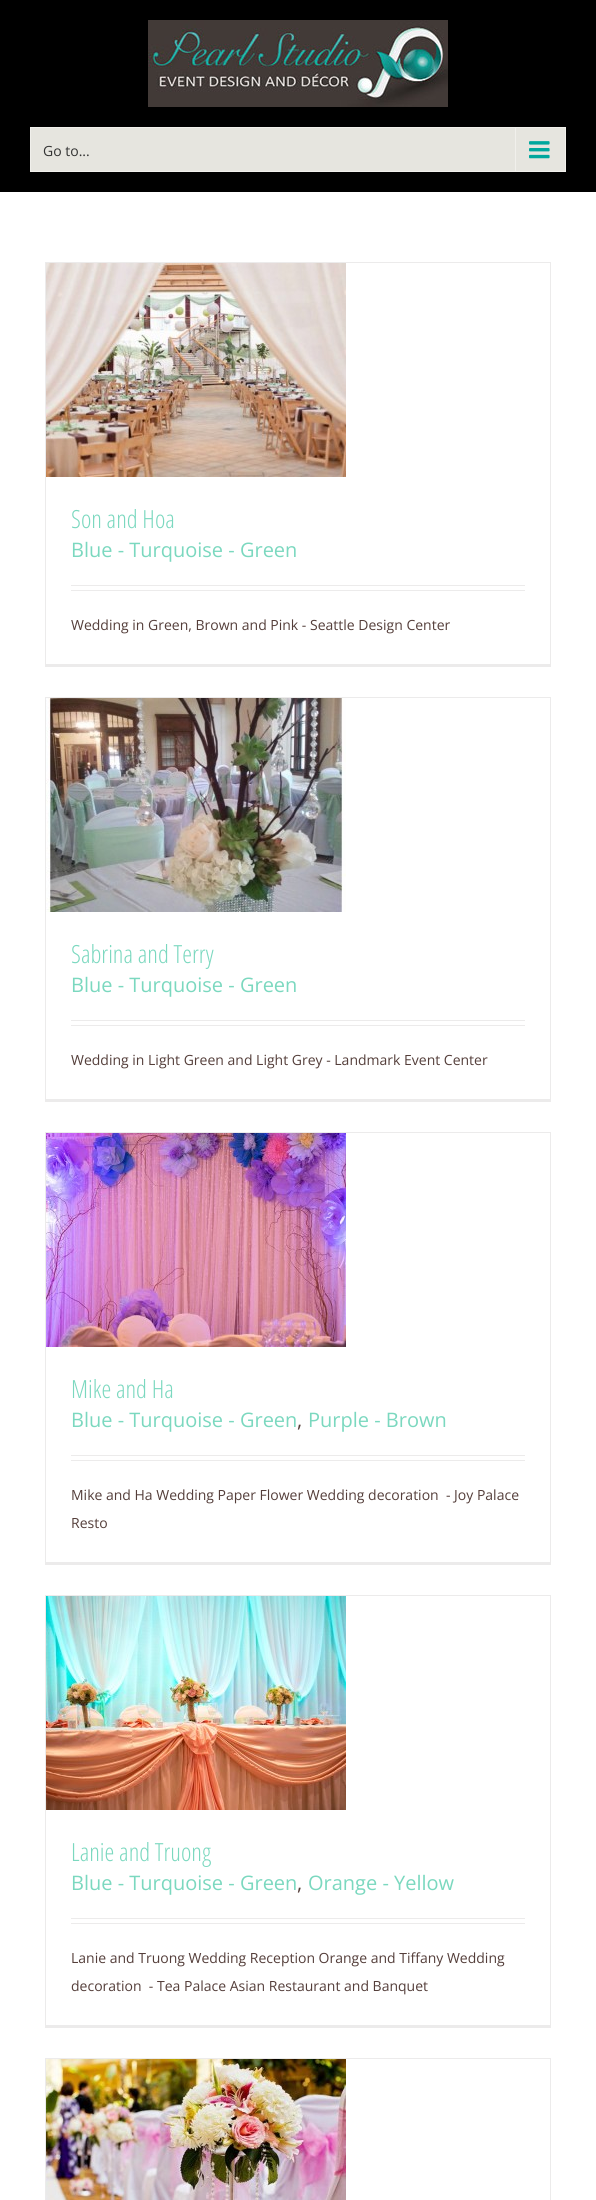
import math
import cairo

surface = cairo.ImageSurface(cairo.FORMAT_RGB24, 596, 2200)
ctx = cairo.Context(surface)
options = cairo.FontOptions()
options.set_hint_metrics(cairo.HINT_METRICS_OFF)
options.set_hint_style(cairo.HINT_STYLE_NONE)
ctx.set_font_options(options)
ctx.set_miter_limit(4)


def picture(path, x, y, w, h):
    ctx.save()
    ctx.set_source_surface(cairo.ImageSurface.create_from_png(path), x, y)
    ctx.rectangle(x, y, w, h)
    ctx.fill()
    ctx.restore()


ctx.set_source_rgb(1, 1, 1)
ctx.paint()
ctx.set_source_rgb(0, 0, 0)
ctx.rectangle(0, 0, 596, 192)
ctx.fill()
picture("img1.png", 148, 20, 300, 87)
ctx.set_source_rgb(0.902, 0.898, 0.875)
ctx.rectangle(30.5, 127.5, 535, 44)
ctx.fill_preserve()
ctx.set_source_rgb(0.945, 0.941, 0.925)
ctx.set_line_width(1)
ctx.stroke()
ctx.select_font_face("Open Sans")
ctx.set_font_size(14)
ctx.set_source_rgb(0.2, 0.2, 0.2)
ctx.move_to(43, 156)
ctx.show_text("Go to...")
ctx.set_source_rgb(0.945, 0.941, 0.925)
ctx.rectangle(515, 128, 1, 43)
ctx.fill()
picture("img2.png", 529, 141, 21, 18)
ctx.set_source_rgb(0.922, 0.918, 0.918)
ctx.rectangle(45, 262, 506, 1)
ctx.fill()
ctx.rectangle(550, 262, 1, 405)
ctx.fill()
ctx.rectangle(45, 664, 506, 3)
ctx.fill()
ctx.rectangle(45, 262, 1, 405)
ctx.fill()
picture("img3.png", 46, 263, 300, 214)
ctx.select_font_face("Open Sans Condensed Light")
ctx.set_font_size(25)
ctx.set_source_rgb(0.482, 0.847, 0.749)
ctx.move_to(71, 528)
ctx.show_text("Son and Hoa")
ctx.select_font_face("Open Sans")
ctx.set_font_size(20)
ctx.move_to(71, 557)
ctx.show_text("Blue - Turquoise - Green")
ctx.set_source_rgb(0.922, 0.918, 0.918)
ctx.rectangle(71, 585, 454, 1)
ctx.fill()
ctx.rectangle(71, 590, 454, 1)
ctx.fill()
ctx.set_font_size(14)
ctx.set_source_rgb(0.329, 0.243, 0.227)
ctx.move_to(71, 630)
ctx.show_text("Wedding in Green, Brown and Pink - Seattle Design Center")
ctx.set_source_rgb(0.922, 0.918, 0.918)
ctx.rectangle(45, 697, 506, 1)
ctx.fill()
ctx.rectangle(550, 697, 1, 405)
ctx.fill()
ctx.rectangle(45, 1099, 506, 3)
ctx.fill()
ctx.rectangle(45, 697, 1, 405)
ctx.fill()
picture("img4.png", 46, 698, 300, 214)
ctx.select_font_face("Open Sans Condensed Light")
ctx.set_font_size(25)
ctx.set_source_rgb(0.482, 0.847, 0.749)
ctx.move_to(71, 963)
ctx.show_text("Sabrina and Terry")
ctx.select_font_face("Open Sans")
ctx.set_font_size(20)
ctx.move_to(71, 992)
ctx.show_text("Blue - Turquoise - Green")
ctx.set_source_rgb(0.922, 0.918, 0.918)
ctx.rectangle(71, 1020, 454, 1)
ctx.fill()
ctx.rectangle(71, 1025, 454, 1)
ctx.fill()
ctx.set_font_size(14)
ctx.set_source_rgb(0.329, 0.243, 0.227)
ctx.move_to(71, 1065)
ctx.show_text("Wedding in Light Green and Light Grey - Landmark Event Center")
ctx.set_source_rgb(0.922, 0.918, 0.918)
ctx.rectangle(45, 1132, 506, 1)
ctx.fill()
ctx.rectangle(550, 1132, 1, 433)
ctx.fill()
ctx.rectangle(45, 1562, 506, 3)
ctx.fill()
ctx.rectangle(45, 1132, 1, 433)
ctx.fill()
picture("img5.png", 46, 1133, 300, 214)
ctx.select_font_face("Open Sans Condensed Light")
ctx.set_font_size(25)
ctx.set_source_rgb(0.482, 0.847, 0.749)
ctx.move_to(71, 1398)
ctx.show_text("Mike and Ha")
ctx.select_font_face("Open Sans")
ctx.set_font_size(20)
ctx.move_to(71, 1427)
ctx.show_text("Blue - Turquoise - Green")
ctx.set_source_rgb(0.329, 0.243, 0.227)
ctx.move_to(297, 1427)
ctx.show_text(",")
ctx.set_source_rgb(0.482, 0.847, 0.749)
ctx.move_to(308, 1427)
ctx.show_text("Purple - Brown")
ctx.set_source_rgb(0.922, 0.918, 0.918)
ctx.rectangle(71, 1455, 454, 1)
ctx.fill()
ctx.rectangle(71, 1460, 454, 1)
ctx.fill()
ctx.set_font_size(14)
ctx.set_source_rgb(0.329, 0.243, 0.227)
ctx.move_to(71, 1500)
ctx.show_text("Mike and Ha Wedding Paper Flower Wedding decoration  - Joy Palace")
ctx.move_to(71, 1528)
ctx.show_text("Resto")
ctx.set_source_rgb(0.922, 0.918, 0.918)
ctx.rectangle(45, 1595, 506, 1)
ctx.fill()
ctx.rectangle(550, 1595, 1, 433)
ctx.fill()
ctx.rectangle(45, 2025, 506, 3)
ctx.fill()
ctx.rectangle(45, 1595, 1, 433)
ctx.fill()
picture("img6.png", 46, 1596, 300, 214)
ctx.select_font_face("Open Sans Condensed Light")
ctx.set_font_size(25)
ctx.set_source_rgb(0.482, 0.847, 0.749)
ctx.move_to(71, 1861)
ctx.show_text("Lanie and Truong")
ctx.select_font_face("Open Sans")
ctx.set_font_size(20)
ctx.move_to(71, 1890)
ctx.show_text("Blue - Turquoise - Green")
ctx.set_source_rgb(0.329, 0.243, 0.227)
ctx.move_to(297, 1890)
ctx.show_text(",")
ctx.set_source_rgb(0.482, 0.847, 0.749)
ctx.move_to(308, 1890)
ctx.show_text("Orange - Yellow")
ctx.set_source_rgb(0.922, 0.918, 0.918)
ctx.rectangle(71, 1918, 454, 1)
ctx.fill()
ctx.rectangle(71, 1923, 454, 1)
ctx.fill()
ctx.set_font_size(14)
ctx.set_source_rgb(0.329, 0.243, 0.227)
ctx.move_to(71, 1963)
ctx.show_text("Lanie and Truong Wedding Reception Orange and Tiffany Wedding")
ctx.move_to(71, 1991)
ctx.show_text("decoration  - Tea Palace Asian Restaurant and Banquet")
ctx.set_source_rgb(0.922, 0.918, 0.918)
ctx.rectangle(45, 2058, 506, 1)
ctx.fill()
ctx.rectangle(550, 2058, 1, 142)
ctx.fill()
ctx.rectangle(45, 2058, 1, 142)
ctx.fill()
picture("img7.png", 46, 2059, 300, 141)
surface.write_to_png("page.png")
